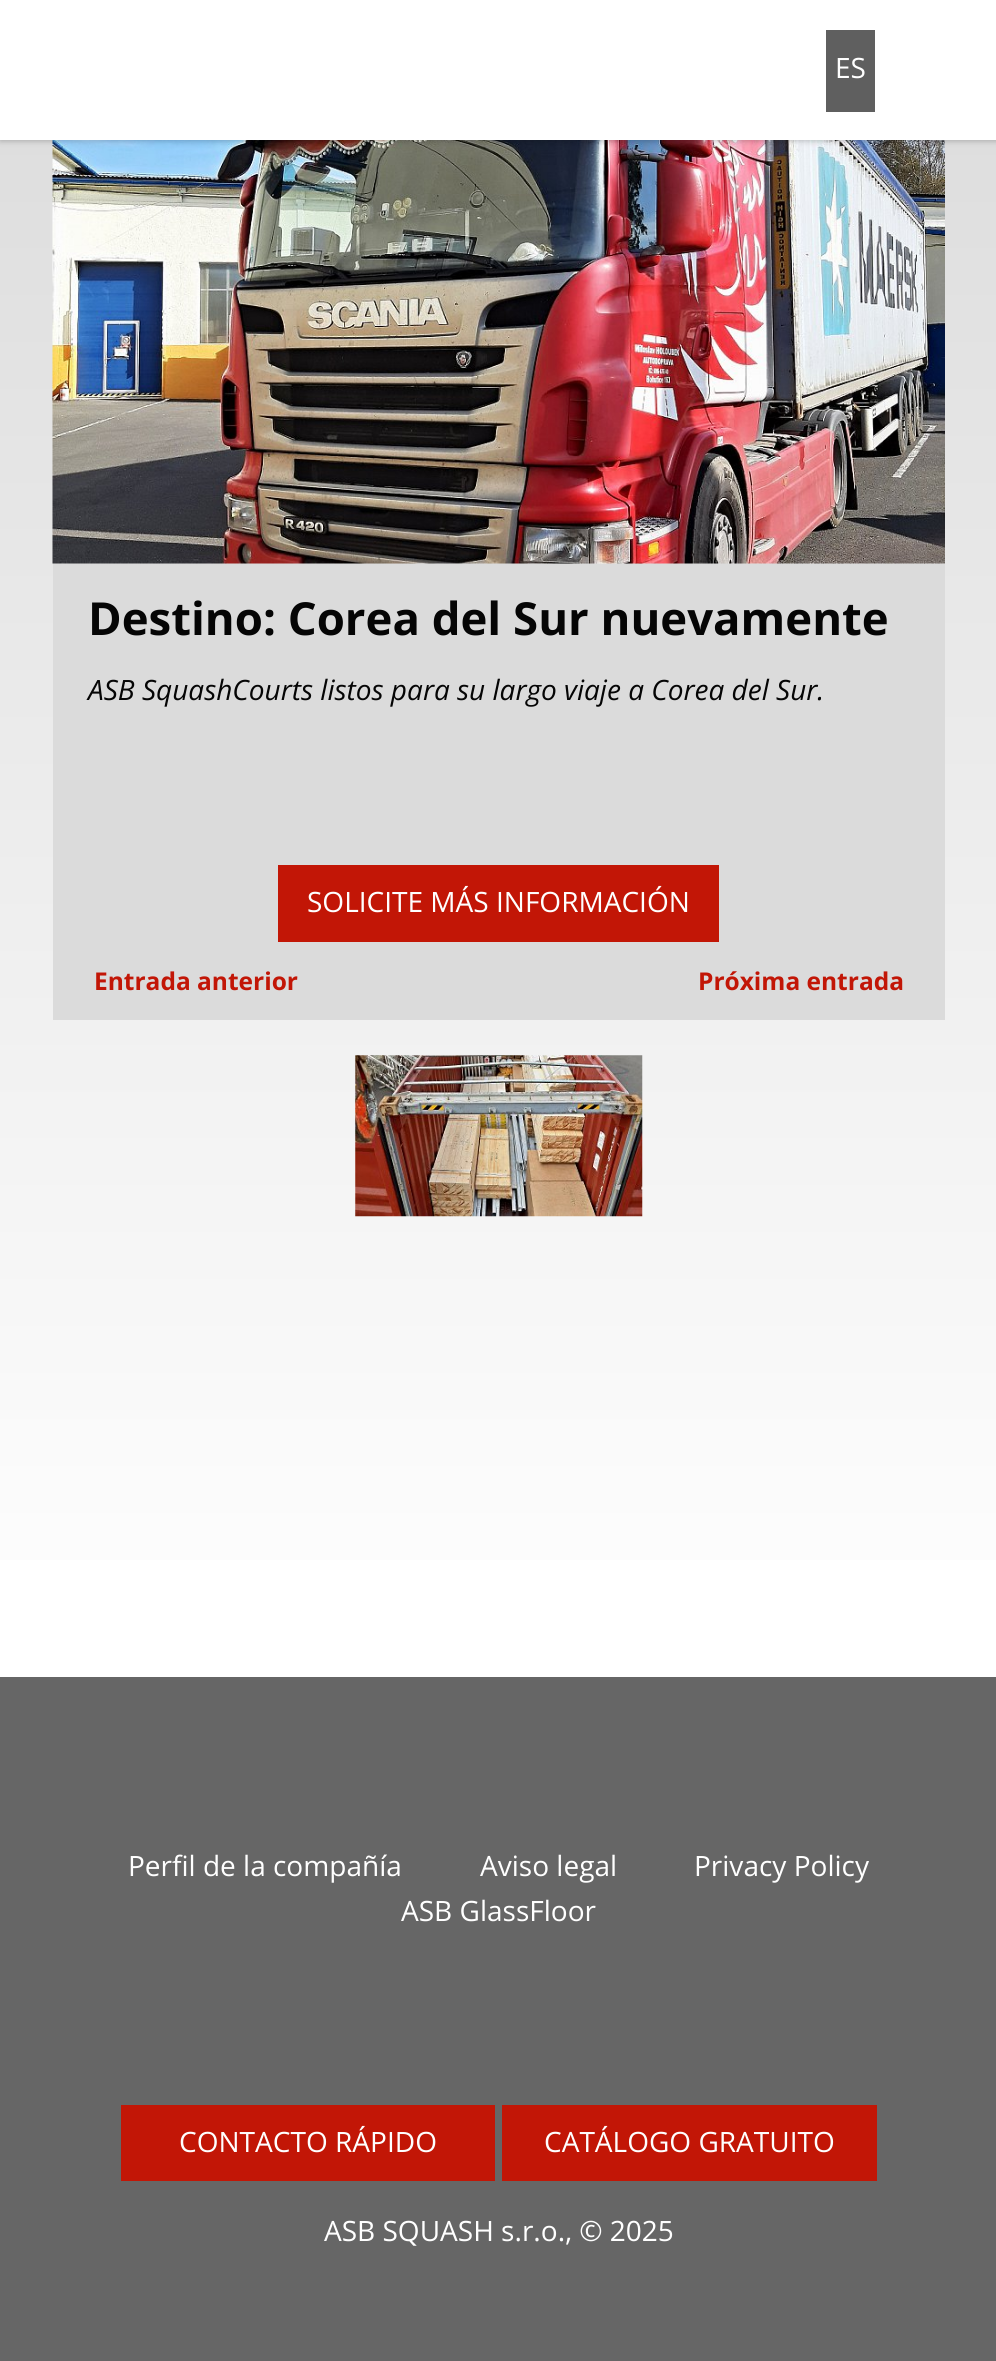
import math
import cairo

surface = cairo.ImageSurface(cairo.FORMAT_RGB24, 996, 2361)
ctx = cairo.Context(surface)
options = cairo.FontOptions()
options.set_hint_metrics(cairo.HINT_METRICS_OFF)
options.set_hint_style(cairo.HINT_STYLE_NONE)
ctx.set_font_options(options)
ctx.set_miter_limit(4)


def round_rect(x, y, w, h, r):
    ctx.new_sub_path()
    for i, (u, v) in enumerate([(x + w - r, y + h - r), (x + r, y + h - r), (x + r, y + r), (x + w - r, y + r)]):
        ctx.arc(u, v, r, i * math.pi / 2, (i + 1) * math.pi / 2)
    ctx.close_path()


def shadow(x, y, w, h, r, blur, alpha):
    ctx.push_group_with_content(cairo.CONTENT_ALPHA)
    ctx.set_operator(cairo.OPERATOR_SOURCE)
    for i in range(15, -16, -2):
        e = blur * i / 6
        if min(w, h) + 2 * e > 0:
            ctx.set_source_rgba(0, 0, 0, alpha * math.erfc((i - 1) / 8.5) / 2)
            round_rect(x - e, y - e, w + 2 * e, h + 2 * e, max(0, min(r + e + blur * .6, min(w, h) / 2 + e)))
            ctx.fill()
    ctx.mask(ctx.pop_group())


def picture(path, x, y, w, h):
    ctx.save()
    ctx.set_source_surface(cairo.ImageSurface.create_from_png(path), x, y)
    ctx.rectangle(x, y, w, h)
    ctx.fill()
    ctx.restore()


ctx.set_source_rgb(1, 1, 1)
ctx.paint()
gradient = cairo.LinearGradient(499, -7, 499, 1677)
gradient.add_color_stop_rgba(0, 0.859, 0.859, 0.859, 1)
gradient.add_color_stop_rgba(1, 1, 1, 1, 1)
ctx.set_source(gradient)
ctx.rectangle(0, 140, 996, 1420)
ctx.fill()
ctx.set_source_rgb(0.859, 0.859, 0.859)
ctx.rectangle(53, 563, 892, 457)
ctx.fill()
picture("img1.png", 52, 140, 893, 424)
ctx.set_source_rgb(0, 0, 0)
shadow(0, 0, 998, 140, 0, 3.5, 0.3)
ctx.set_source_rgb(1, 1, 1)
ctx.rectangle(0, 0, 996, 140)
ctx.fill()
ctx.set_source_rgb(0.373, 0.373, 0.373)
ctx.rectangle(826, 30, 49, 82)
ctx.fill()
ctx.select_font_face("Open Sans")
ctx.set_font_size(28)
ctx.set_source_rgb(1, 1, 1)
ctx.move_to(835, 78)
ctx.show_text("ES")
ctx.select_font_face("Open Sans", cairo.FONT_SLANT_NORMAL, cairo.FONT_WEIGHT_BOLD)
ctx.set_font_size(45.5)
ctx.set_source_rgb(0.02, 0.02, 0.02)
ctx.move_to(88, 635)
ctx.show_text("Destino: Corea del Sur nuevamente")
ctx.select_font_face("Open Sans", cairo.FONT_SLANT_ITALIC)
ctx.set_font_size(28)
ctx.move_to(88, 700)
ctx.show_text("ASB SquashCourts listos para su largo viaje a Corea del Sur.")
ctx.set_source_rgb(0.761, 0.086, 0.024)
ctx.rectangle(278, 865, 441, 77)
ctx.fill()
ctx.select_font_face("Open Sans")
ctx.set_source_rgb(1, 1, 1)
ctx.move_to(307, 912)
ctx.show_text("SOLICITE MÁS INFORMACIÓN")
ctx.select_font_face("Open Sans", cairo.FONT_SLANT_NORMAL, cairo.FONT_WEIGHT_BOLD)
ctx.set_font_size(24.5)
ctx.set_source_rgb(0.761, 0.086, 0.024)
ctx.move_to(94, 990)
ctx.show_text("Entrada anterior")
ctx.move_to(698, 990)
ctx.show_text("Próxima entrada")
picture("img2.png", 355, 1055, 288, 162)
ctx.set_source_rgb(0.4, 0.4, 0.4)
ctx.rectangle(0, 1677, 996, 684)
ctx.fill()
ctx.select_font_face("Open Sans")
ctx.set_font_size(28)
ctx.set_source_rgb(1, 1, 1)
ctx.move_to(128, 1876)
ctx.show_text("Perfil de la compañía")
ctx.move_to(480, 1876)
ctx.show_text("Aviso legal")
ctx.move_to(694, 1876)
ctx.show_text("Privacy Policy")
ctx.move_to(401, 1921)
ctx.show_text("ASB GlassFloor")
ctx.set_source_rgb(0.761, 0.086, 0.024)
ctx.rectangle(121, 2105, 374, 76)
ctx.fill()
ctx.set_source_rgb(1, 1, 1)
ctx.move_to(179, 2152)
ctx.show_text("CONTACTO RÁPIDO")
ctx.set_source_rgb(0.761, 0.086, 0.024)
ctx.rectangle(502, 2105, 375, 76)
ctx.fill()
ctx.set_source_rgb(1, 1, 1)
ctx.move_to(544, 2152)
ctx.show_text("CATÁLOGO GRATUITO")
ctx.move_to(324, 2241)
ctx.show_text("ASB SQUASH s.r.o., © 2025")
surface.write_to_png("page.png")
